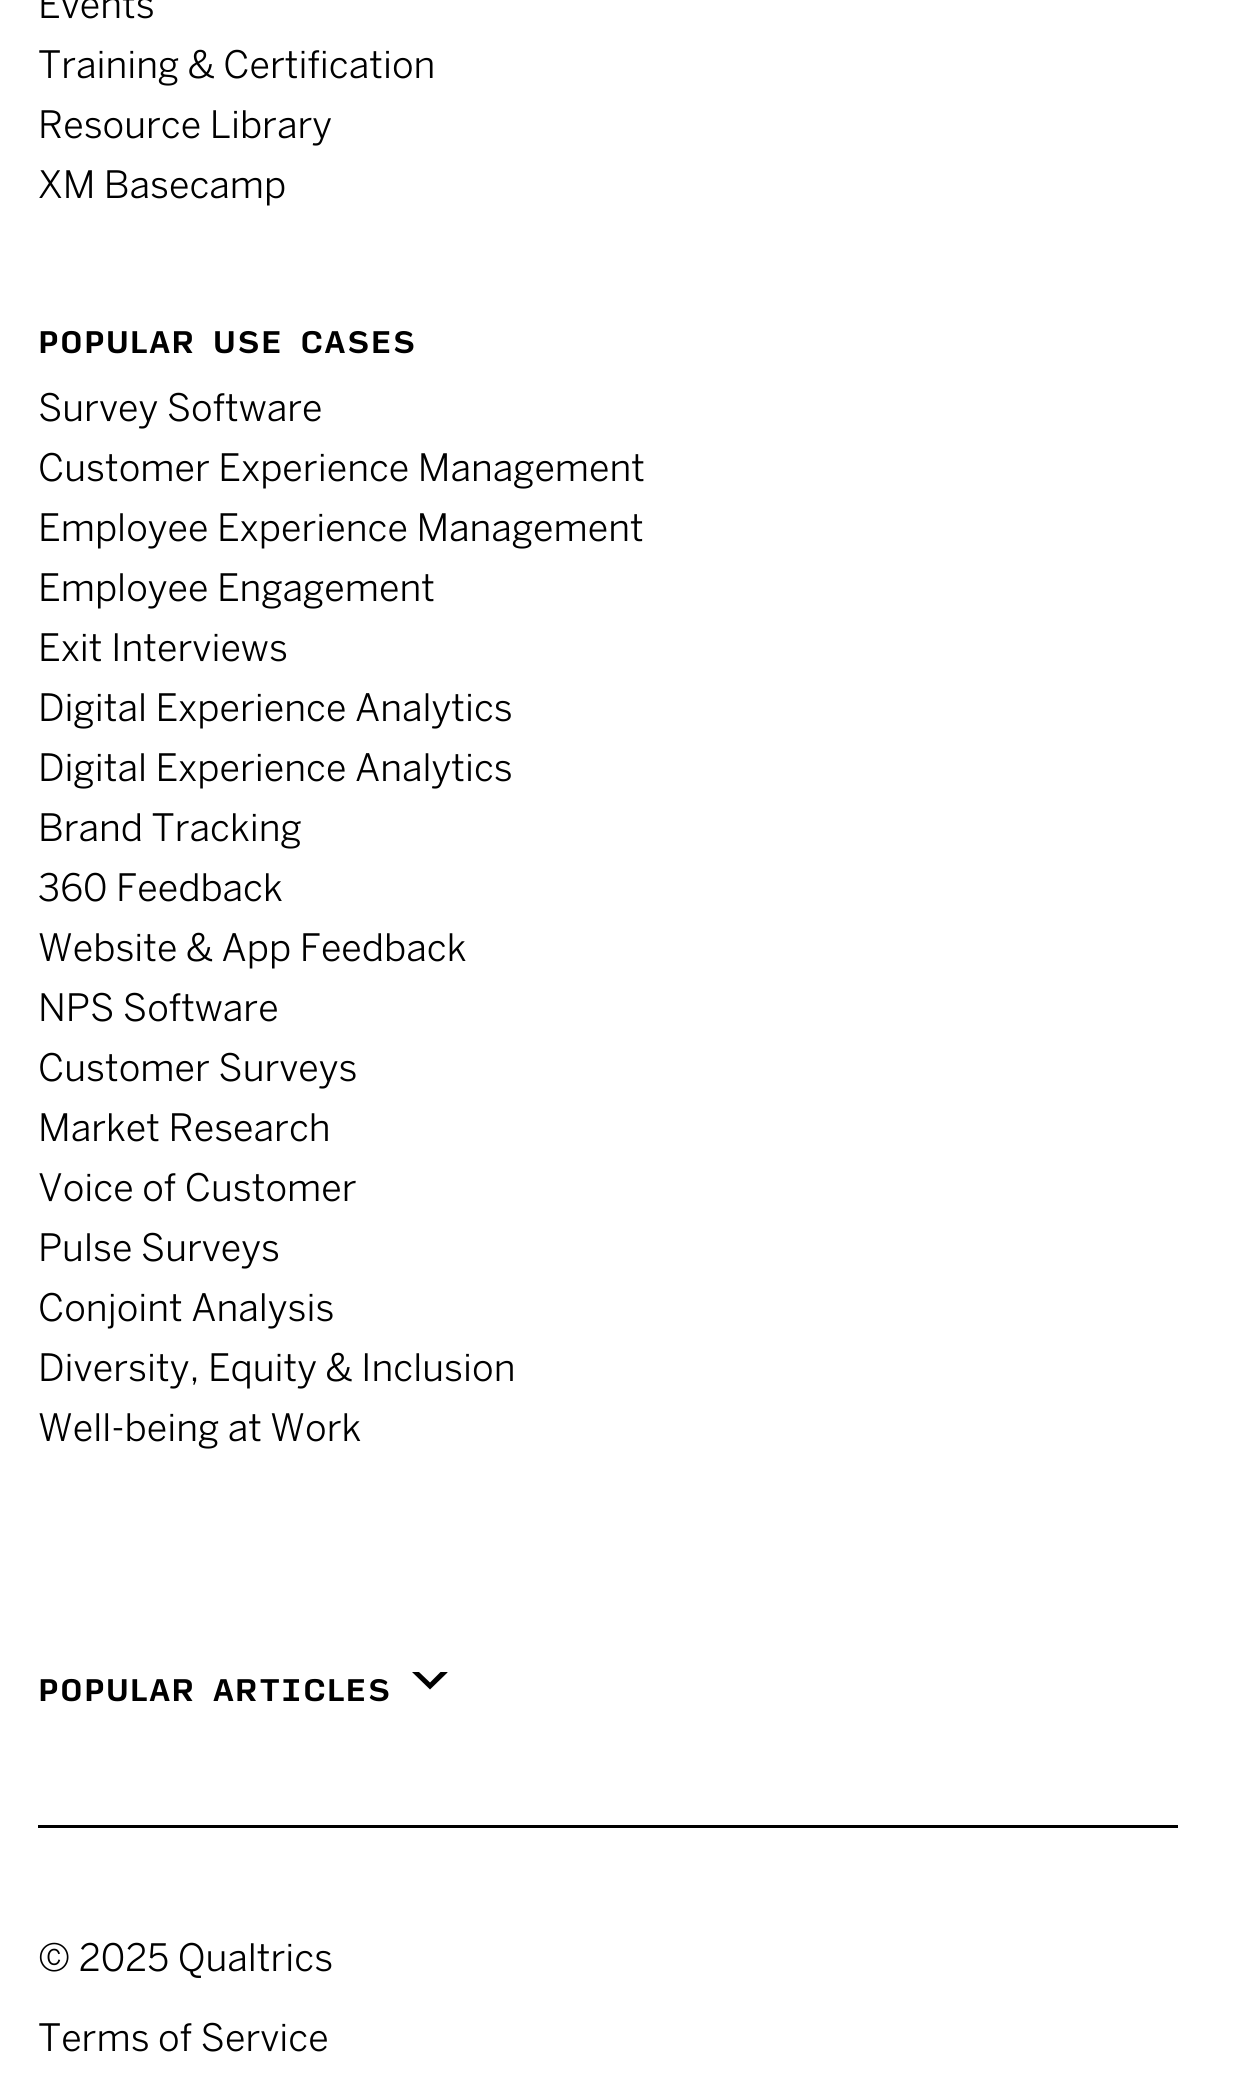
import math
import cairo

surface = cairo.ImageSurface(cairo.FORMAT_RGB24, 1252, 2081)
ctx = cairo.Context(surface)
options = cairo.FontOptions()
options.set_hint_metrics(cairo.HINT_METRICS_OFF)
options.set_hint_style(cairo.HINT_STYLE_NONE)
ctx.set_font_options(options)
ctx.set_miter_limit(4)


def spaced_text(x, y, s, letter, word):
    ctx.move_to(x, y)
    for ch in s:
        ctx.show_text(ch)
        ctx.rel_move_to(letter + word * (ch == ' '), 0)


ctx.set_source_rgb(1, 1, 1)
ctx.paint()
ctx.select_font_face("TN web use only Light")
ctx.set_font_size(37.5)
ctx.set_source_rgb(0, 0, 0)
ctx.move_to(38, 18)
ctx.show_text("Events")
ctx.move_to(38, 78)
ctx.show_text("Training & Certification")
ctx.move_to(38, 138)
ctx.show_text("Resource Library")
ctx.move_to(38, 198)
ctx.show_text("XM Basecamp")
ctx.select_font_face("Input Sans", cairo.FONT_SLANT_NORMAL, cairo.FONT_WEIGHT_BOLD)
ctx.set_font_size(30)
spaced_text(38, 353, "POPULAR USE CASES", 0.6, 0)
ctx.select_font_face("TN web use only Light")
ctx.set_font_size(37.5)
ctx.move_to(38, 421)
ctx.show_text("Survey Software")
ctx.move_to(38, 481)
ctx.show_text("Customer Experience Management")
ctx.move_to(38, 541)
ctx.show_text("Employee Experience Management")
ctx.move_to(38, 601)
ctx.show_text("Employee Engagement")
ctx.move_to(38, 661)
ctx.show_text("Exit Interviews")
ctx.move_to(38, 721)
ctx.show_text("Digital Experience Analytics")
ctx.move_to(38, 781)
ctx.show_text("Digital Experience Analytics")
ctx.move_to(38, 841)
ctx.show_text("Brand Tracking")
ctx.move_to(38, 901)
ctx.show_text("360 Feedback")
ctx.move_to(38, 961)
ctx.show_text("Website & App Feedback")
ctx.move_to(38, 1021)
ctx.show_text("NPS Software")
ctx.move_to(38, 1081)
ctx.show_text("Customer Surveys")
ctx.move_to(38, 1141)
ctx.show_text("Market Research")
ctx.move_to(38, 1201)
ctx.show_text("Voice of Customer")
ctx.move_to(38, 1261)
ctx.show_text("Pulse Surveys")
ctx.move_to(38, 1321)
ctx.show_text("Conjoint Analysis")
ctx.move_to(38, 1381)
ctx.show_text("Diversity, Equity & Inclusion")
ctx.move_to(38, 1441)
ctx.show_text("Well-being at Work")
ctx.select_font_face("Input Sans", cairo.FONT_SLANT_NORMAL, cairo.FONT_WEIGHT_BOLD)
ctx.set_font_size(30)
spaced_text(38, 1701, "POPULAR ARTICLES", 0.6, 0)
ctx.new_path()
ctx.move_to(447.5, 1672)
ctx.line_to(447.5, 1672.5)
ctx.line_to(430, 1689.5)
ctx.line_to(412, 1672)
ctx.line_to(419, 1672)
ctx.line_to(430, 1682.5)
ctx.line_to(440.5, 1672)
ctx.close_path()
ctx.fill()
ctx.rectangle(38, 1825, 1140, 3)
ctx.fill()
ctx.select_font_face("TN web use only Light")
ctx.set_font_size(37.5)
ctx.move_to(38, 1971)
ctx.show_text("© 2025 Qualtrics")
ctx.move_to(38, 2051)
ctx.show_text("Terms of Service")
surface.write_to_png("page.png")
